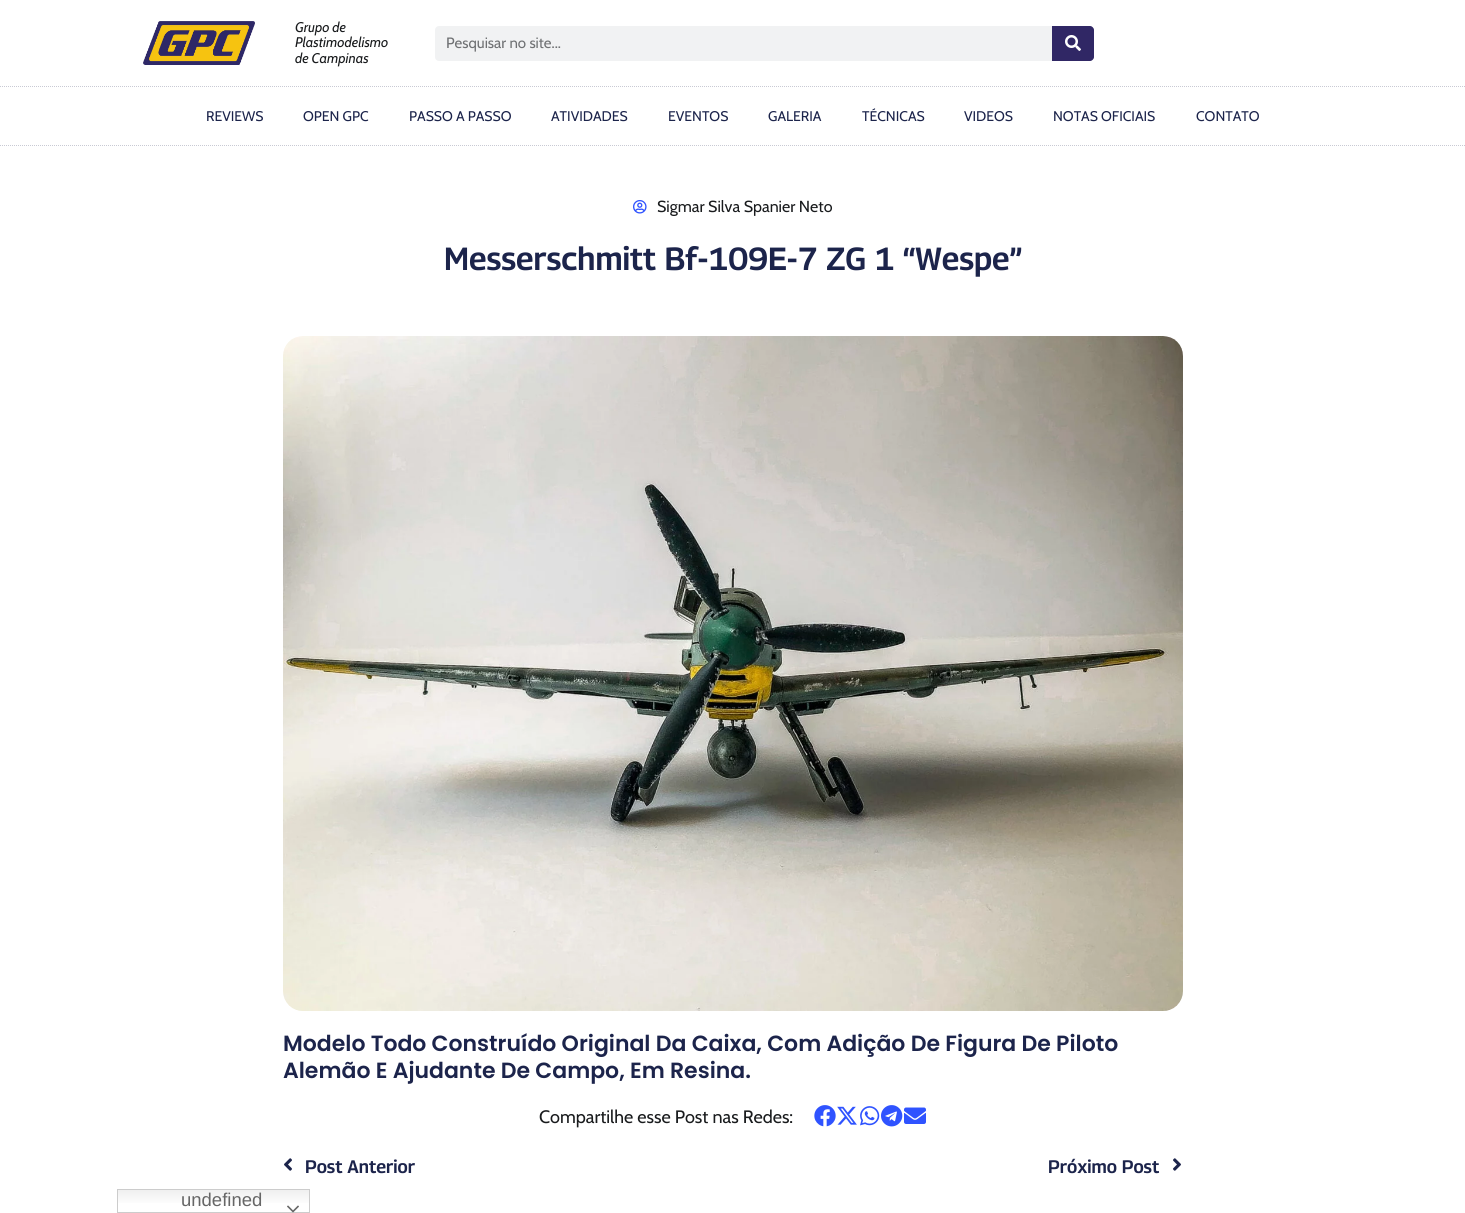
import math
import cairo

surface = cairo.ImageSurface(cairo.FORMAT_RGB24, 1465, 1213)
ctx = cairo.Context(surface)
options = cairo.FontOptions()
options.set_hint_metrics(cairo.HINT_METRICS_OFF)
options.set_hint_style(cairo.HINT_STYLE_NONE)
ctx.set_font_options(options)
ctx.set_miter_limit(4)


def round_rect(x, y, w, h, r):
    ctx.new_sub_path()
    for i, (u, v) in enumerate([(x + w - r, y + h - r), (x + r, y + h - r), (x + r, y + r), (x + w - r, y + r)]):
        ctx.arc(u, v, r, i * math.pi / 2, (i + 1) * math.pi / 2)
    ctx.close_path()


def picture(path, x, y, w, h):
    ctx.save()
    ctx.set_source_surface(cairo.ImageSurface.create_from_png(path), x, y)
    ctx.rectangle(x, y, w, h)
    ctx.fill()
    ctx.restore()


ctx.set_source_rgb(1, 1, 1)
ctx.paint()
picture("img1.png", 143, 21, 112, 44)
ctx.select_font_face("Cabin", cairo.FONT_SLANT_ITALIC)
ctx.set_font_size(14)
ctx.set_source_rgb(0.098, 0.106, 0.114)
ctx.move_to(295, 32)
ctx.show_text("Grupo de")
ctx.move_to(295, 47)
ctx.show_text("Plastimodelismo")
ctx.move_to(295, 63)
ctx.show_text("de Campinas")
ctx.set_source_rgb(0.945, 0.949, 0.953)
round_rect(435, 26, 659, 35, 4)
ctx.fill()
ctx.select_font_face("Cabin")
ctx.set_font_size(15)
ctx.set_source_rgb(0.435, 0.443, 0.451)
ctx.move_to(446, 48)
ctx.show_text("Pesquisar no site...")
ctx.set_source_rgb(0.188, 0.153, 0.396)
ctx.new_path()
ctx.move_to(1052, 26)
ctx.line_to(1090, 26)
ctx.curve_to(1092, 26, 1094, 28, 1094, 30)
ctx.line_to(1094, 57)
ctx.curve_to(1094, 59, 1092, 61, 1090, 61)
ctx.line_to(1052, 61)
ctx.close_path()
ctx.fill()
picture("img2.png", 1065, 35, 16, 16)
gradient = cairo.LinearGradient(214, 1189, 214, 1213)
gradient.add_color_stop_rgba(0, 0.937, 0.937, 0.937, 1)
gradient.add_color_stop_rgba(0.7, 1, 1, 1, 1)
ctx.set_source(gradient)
ctx.rectangle(118, 1190, 191, 13)
ctx.fill()
ctx.rectangle(117.5, 1189.5, 192, 23)
ctx.set_source_rgb(0.8, 0.8, 0.8)
ctx.set_line_width(1)
ctx.stroke()
ctx.select_font_face("Liberation Sans")
ctx.set_font_size(18.5)
ctx.set_source_rgb(0.4, 0.4, 0.4)
ctx.move_to(181, 1206)
ctx.show_text("undefined")
picture("img3.png", 287, 1205, 12, 8)
ctx.new_path()
ctx.move_to(0, 86.5)
ctx.line_to(1465, 86.5)
ctx.set_source_rgb(0.788, 0.792, 0.831)
ctx.set_dash([1, 1])
ctx.stroke()
ctx.new_path()
ctx.move_to(0, 145.5)
ctx.line_to(1465, 145.5)
ctx.stroke()
ctx.select_font_face("Cabin")
ctx.set_font_size(14)
ctx.set_source_rgb(0.11, 0.141, 0.294)
ctx.move_to(206, 121)
ctx.show_text("REVIEWS")
ctx.move_to(303, 121)
ctx.show_text("OPEN GPC")
ctx.move_to(409, 121)
ctx.show_text("PASSO A PASSO")
ctx.move_to(551, 121)
ctx.show_text("ATIVIDADES")
ctx.move_to(668, 121)
ctx.show_text("EVENTOS")
ctx.move_to(768, 121)
ctx.show_text("GALERIA")
ctx.move_to(862, 121)
ctx.show_text("TÉCNICAS")
ctx.move_to(964, 121)
ctx.show_text("VIDEOS")
ctx.move_to(1053, 121)
ctx.show_text("NOTAS OFICIAIS")
ctx.move_to(1196, 121)
ctx.show_text("CONTATO")
picture("img4.png", 633, 200, 14, 14)
ctx.set_font_size(16)
ctx.set_source_rgb(0.098, 0.106, 0.114)
ctx.move_to(657, 212)
ctx.show_text("Sigmar Silva Spanier Neto")
ctx.select_font_face("Georama SemiBold")
ctx.set_font_size(32)
ctx.set_source_rgb(0.11, 0.141, 0.294)
ctx.move_to(444, 270)
ctx.show_text("Messerschmitt Bf-109E-7 ZG 1 “Wespe”")
picture("img5.png", 283, 336, 900, 675)
ctx.select_font_face("Poppins SemiBold")
ctx.set_font_size(22)
ctx.move_to(283, 1051)
ctx.show_text("Modelo Todo Construído Original Da Caixa, Com Adição De Figura De Piloto")
ctx.move_to(283, 1078)
ctx.show_text("Alemão E Ajudante De Campo, Em Resina.")
ctx.select_font_face("Cabin")
ctx.set_font_size(18)
ctx.set_source_rgb(0.098, 0.106, 0.114)
ctx.move_to(539, 1123)
ctx.show_text("Compartilhe esse Post nas Redes:")
picture("img6.png", 814, 1105, 22, 22)
picture("img7.png", 837, 1106, 20, 19)
picture("img8.png", 860, 1106, 20, 20)
picture("img9.png", 881, 1105, 22, 22)
picture("img10.png", 904, 1107, 22, 17)
picture("img11.png", 284, 1158, 8, 13)
ctx.select_font_face("Georama SemiBold")
ctx.set_source_rgb(0.11, 0.141, 0.294)
ctx.move_to(305, 1173)
ctx.show_text("Post Anterior")
ctx.move_to(1048, 1173)
ctx.show_text("Próximo Post")
picture("img12.png", 1173, 1158, 8, 13)
surface.write_to_png("page.png")
